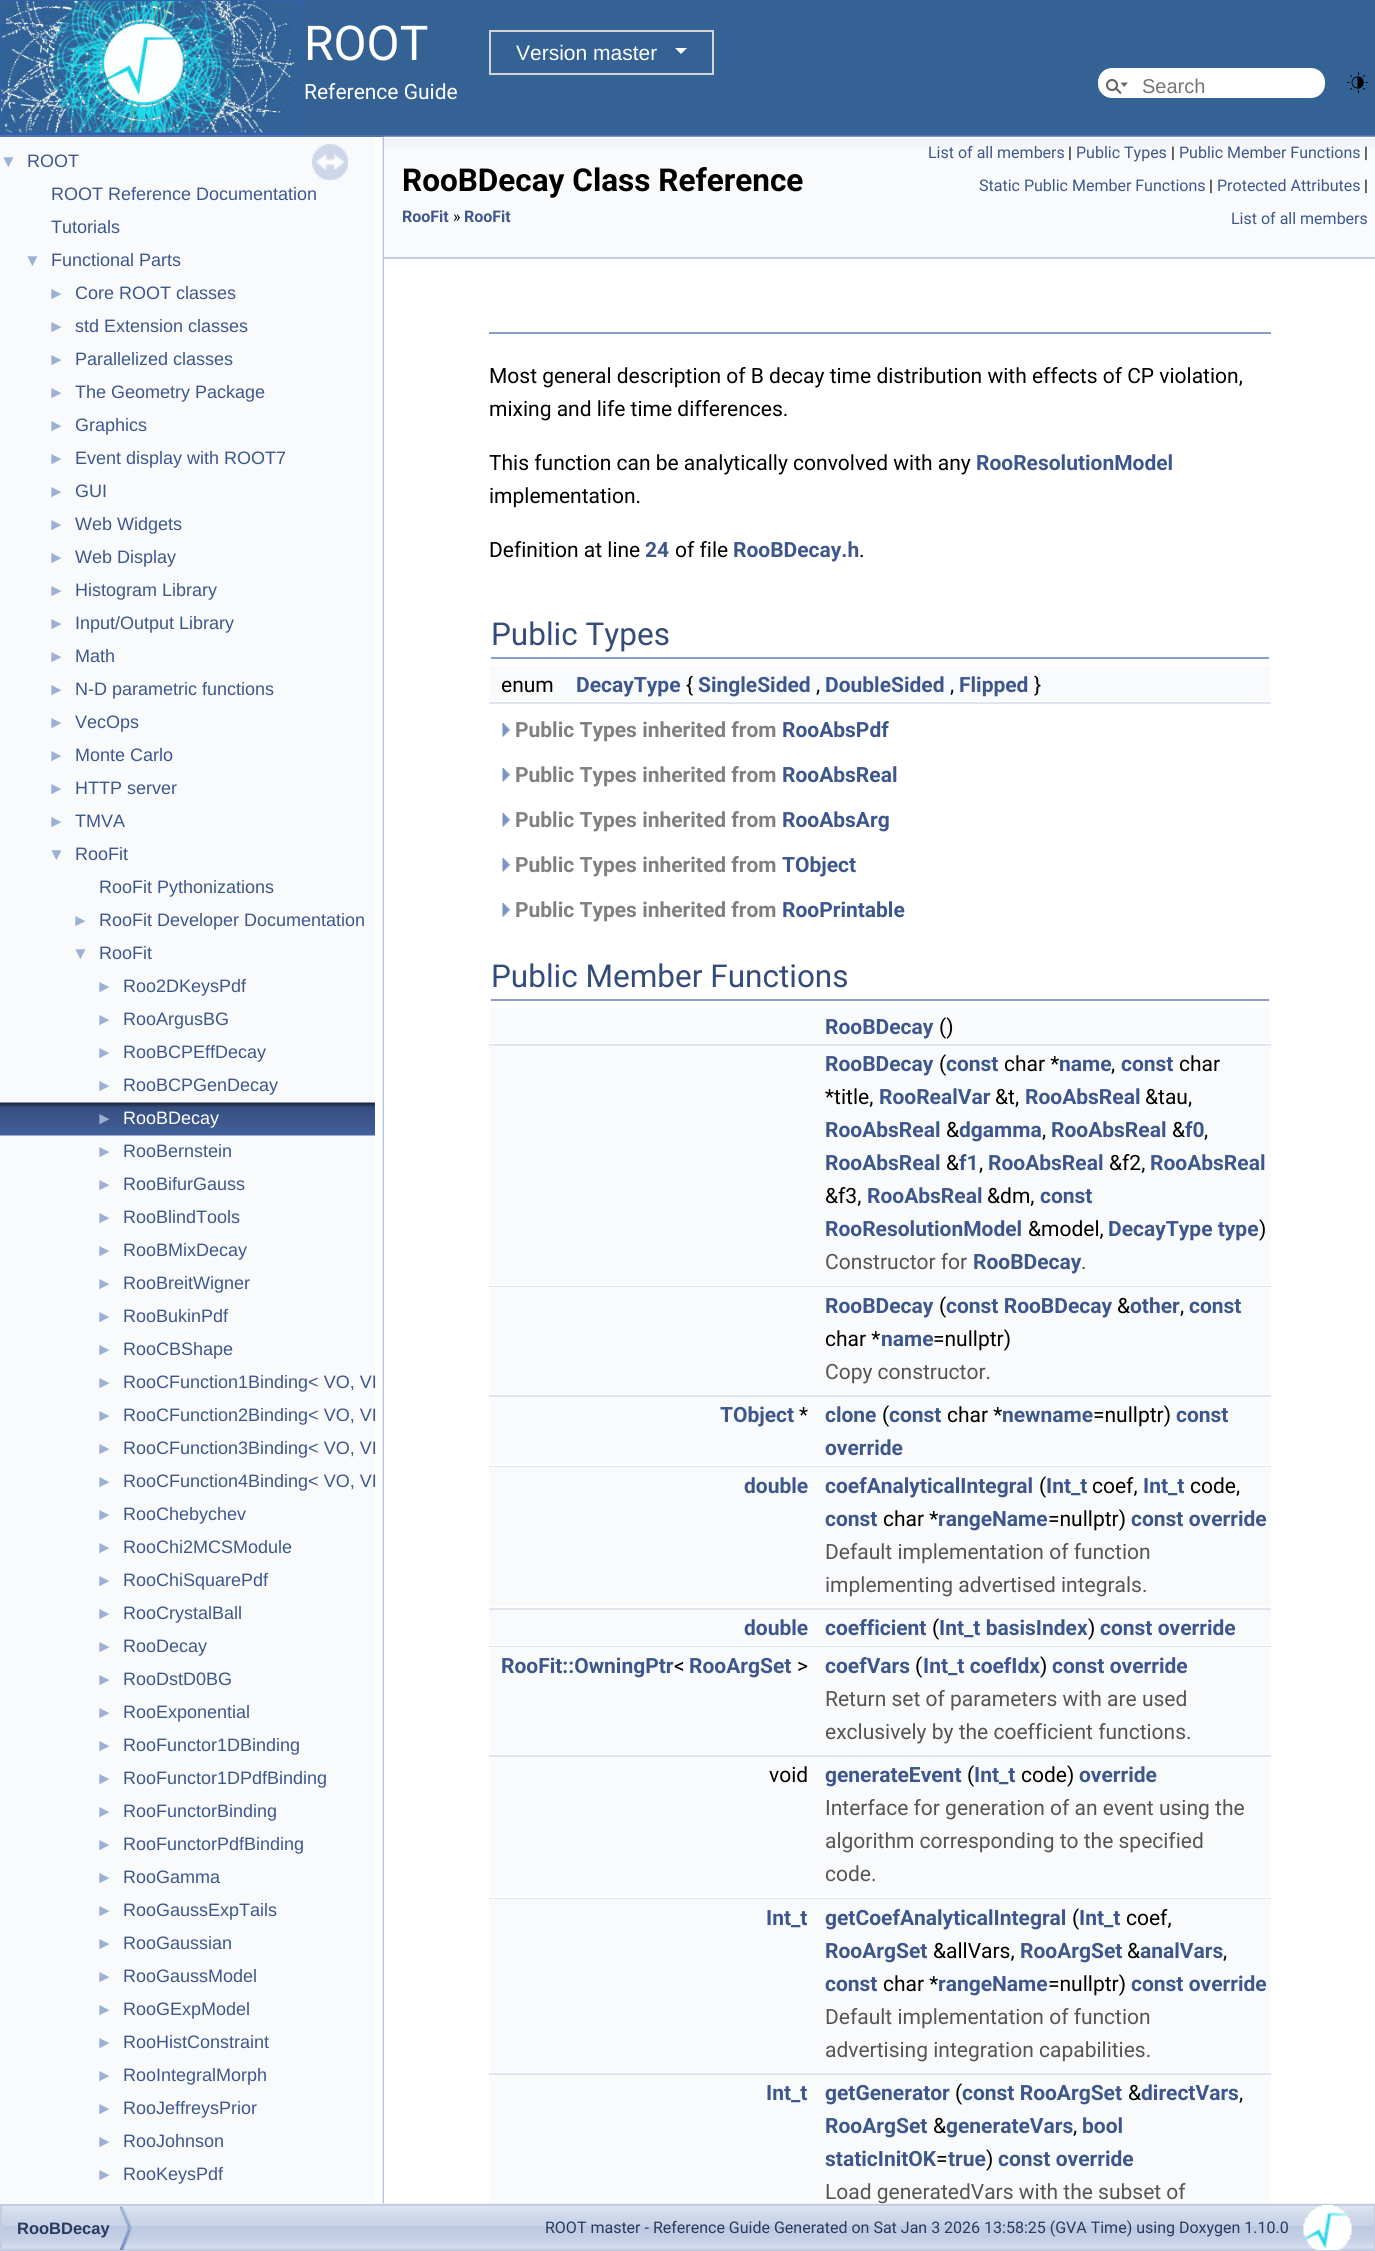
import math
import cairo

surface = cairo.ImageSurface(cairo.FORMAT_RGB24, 1375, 2251)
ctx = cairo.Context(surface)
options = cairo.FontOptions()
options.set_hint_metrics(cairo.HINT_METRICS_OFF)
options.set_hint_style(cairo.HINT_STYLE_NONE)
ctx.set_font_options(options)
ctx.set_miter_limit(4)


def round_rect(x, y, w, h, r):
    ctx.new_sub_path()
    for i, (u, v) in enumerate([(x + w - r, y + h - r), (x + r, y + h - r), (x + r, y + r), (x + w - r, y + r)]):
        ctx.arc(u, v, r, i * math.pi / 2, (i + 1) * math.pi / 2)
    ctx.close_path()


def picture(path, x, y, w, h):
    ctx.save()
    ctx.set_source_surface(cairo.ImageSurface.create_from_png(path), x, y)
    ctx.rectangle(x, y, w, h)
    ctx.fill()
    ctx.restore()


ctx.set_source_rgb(1, 1, 1)
ctx.paint()
ctx.set_source_rgb(0.325, 0.451, 0.706)
ctx.rectangle(0, 135, 1375, 2)
ctx.fill()
ctx.set_source_rgb(0.204, 0.384, 0.584)
ctx.rectangle(304, 0, 1071, 135)
ctx.fill()
gradient = cairo.LinearGradient(152, 106, 152, 131)
gradient.add_color_stop_rgba(0, 0.204, 0.384, 0.584, 1)
gradient.add_color_stop_rgba(0.94, 0.204, 0.384, 0.584, 1)
gradient.add_color_stop_rgba(1, 0.239, 0.341, 0.549, 1)
ctx.set_source(gradient)
ctx.rectangle(304, 130, 1, 1)
ctx.fill()
picture("img1.png", 0, 0, 305, 135)
ctx.select_font_face("Roboto")
ctx.set_font_size(48)
ctx.set_source_rgb(1, 1, 1)
ctx.move_to(304, 60)
ctx.show_text("ROOT")
ctx.rectangle(490, 31, 223, 43)
ctx.set_source_rgb(0.827, 0.827, 0.827)
ctx.stroke()
ctx.select_font_face("Liberation Sans")
ctx.set_font_size(21)
ctx.set_source_rgb(1, 1, 1)
ctx.move_to(516, 60)
ctx.show_text("Version master")
ctx.new_path()
ctx.move_to(675, 48)
ctx.line_to(687, 48)
ctx.line_to(681, 54)
ctx.close_path()
ctx.fill()
ctx.select_font_face("Roboto")
ctx.move_to(304, 99)
ctx.show_text("Reference Guide")
round_rect(1098, 68, 227, 30, 14)
ctx.fill()
picture("img2.png", 1106, 79, 22, 15)
ctx.select_font_face("Liberation Sans")
ctx.set_font_size(20)
ctx.set_source_rgb(0.459, 0.459, 0.459)
ctx.move_to(1142, 93)
ctx.show_text("Search")
picture("img3.png", 1347, 72, 21, 21)
ctx.set_source_rgb(0.976, 0.98, 0.988)
ctx.rectangle(489, 2175, 782, 29)
ctx.fill()
ctx.select_font_face("Roboto")
ctx.set_font_size(21)
ctx.set_source_rgb(0.333, 0.333, 0.333)
ctx.move_to(825, 2199)
ctx.show_text("Load generatedVars with the subset of")
picture("img9.png", 2, 2203, 1373, 47)
ctx.set_source_rgb(0.976, 0.98, 0.988)
ctx.rectangle(0, 137, 375, 2067)
ctx.fill()
picture("img4.png", 312, 144, 36, 36)
ctx.select_font_face("Liberation Sans")
ctx.set_font_size(17)
ctx.set_source_rgb(0.612, 0.686, 0.831)
ctx.move_to(0, 167)
ctx.show_text("▼")
ctx.set_font_size(18)
ctx.set_source_rgb(0.239, 0.341, 0.549)
ctx.move_to(27, 167)
ctx.show_text("ROOT")
ctx.move_to(51, 200)
ctx.show_text("ROOT Reference Documentation")
ctx.move_to(51, 233)
ctx.show_text("Tutorials")
ctx.set_font_size(17)
ctx.set_source_rgb(0.612, 0.686, 0.831)
ctx.move_to(24, 266)
ctx.show_text("▼")
ctx.set_font_size(18)
ctx.set_source_rgb(0.239, 0.341, 0.549)
ctx.move_to(51, 266)
ctx.show_text("Functional Parts")
ctx.set_font_size(17)
ctx.set_source_rgb(0.612, 0.686, 0.831)
ctx.move_to(48, 299)
ctx.show_text("►")
ctx.set_font_size(18)
ctx.set_source_rgb(0.239, 0.341, 0.549)
ctx.move_to(75, 299)
ctx.show_text("Core ROOT classes")
ctx.set_font_size(17)
ctx.set_source_rgb(0.612, 0.686, 0.831)
ctx.move_to(48, 332)
ctx.show_text("►")
ctx.set_font_size(18)
ctx.set_source_rgb(0.239, 0.341, 0.549)
ctx.move_to(75, 332)
ctx.show_text("std Extension classes")
ctx.set_font_size(17)
ctx.set_source_rgb(0.612, 0.686, 0.831)
ctx.move_to(48, 365)
ctx.show_text("►")
ctx.set_font_size(18)
ctx.set_source_rgb(0.239, 0.341, 0.549)
ctx.move_to(75, 365)
ctx.show_text("Parallelized classes")
ctx.set_font_size(17)
ctx.set_source_rgb(0.612, 0.686, 0.831)
ctx.move_to(48, 398)
ctx.show_text("►")
ctx.set_font_size(18)
ctx.set_source_rgb(0.239, 0.341, 0.549)
ctx.move_to(75, 398)
ctx.show_text("The Geometry Package")
ctx.set_font_size(17)
ctx.set_source_rgb(0.612, 0.686, 0.831)
ctx.move_to(48, 431)
ctx.show_text("►")
ctx.set_font_size(18)
ctx.set_source_rgb(0.239, 0.341, 0.549)
ctx.move_to(75, 431)
ctx.show_text("Graphics")
ctx.set_font_size(17)
ctx.set_source_rgb(0.612, 0.686, 0.831)
ctx.move_to(48, 464)
ctx.show_text("►")
ctx.set_font_size(18)
ctx.set_source_rgb(0.239, 0.341, 0.549)
ctx.move_to(75, 464)
ctx.show_text("Event display with ROOT7")
ctx.set_font_size(17)
ctx.set_source_rgb(0.612, 0.686, 0.831)
ctx.move_to(48, 497)
ctx.show_text("►")
ctx.set_font_size(18)
ctx.set_source_rgb(0.239, 0.341, 0.549)
ctx.move_to(75, 497)
ctx.show_text("GUI")
ctx.set_font_size(17)
ctx.set_source_rgb(0.612, 0.686, 0.831)
ctx.move_to(48, 530)
ctx.show_text("►")
ctx.set_font_size(18)
ctx.set_source_rgb(0.239, 0.341, 0.549)
ctx.move_to(75, 530)
ctx.show_text("Web Widgets")
ctx.set_font_size(17)
ctx.set_source_rgb(0.612, 0.686, 0.831)
ctx.move_to(48, 563)
ctx.show_text("►")
ctx.set_font_size(18)
ctx.set_source_rgb(0.239, 0.341, 0.549)
ctx.move_to(75, 563)
ctx.show_text("Web Display")
ctx.set_font_size(17)
ctx.set_source_rgb(0.612, 0.686, 0.831)
ctx.move_to(48, 596)
ctx.show_text("►")
ctx.set_font_size(18)
ctx.set_source_rgb(0.239, 0.341, 0.549)
ctx.move_to(75, 596)
ctx.show_text("Histogram Library")
ctx.set_font_size(17)
ctx.set_source_rgb(0.612, 0.686, 0.831)
ctx.move_to(48, 629)
ctx.show_text("►")
ctx.set_font_size(18)
ctx.set_source_rgb(0.239, 0.341, 0.549)
ctx.move_to(75, 629)
ctx.show_text("Input/Output Library")
ctx.set_font_size(17)
ctx.set_source_rgb(0.612, 0.686, 0.831)
ctx.move_to(48, 662)
ctx.show_text("►")
ctx.set_font_size(18)
ctx.set_source_rgb(0.239, 0.341, 0.549)
ctx.move_to(75, 662)
ctx.show_text("Math")
ctx.set_font_size(17)
ctx.set_source_rgb(0.612, 0.686, 0.831)
ctx.move_to(48, 695)
ctx.show_text("►")
ctx.set_font_size(18)
ctx.set_source_rgb(0.239, 0.341, 0.549)
ctx.move_to(75, 695)
ctx.show_text("N-D parametric functions")
ctx.set_font_size(17)
ctx.set_source_rgb(0.612, 0.686, 0.831)
ctx.move_to(48, 728)
ctx.show_text("►")
ctx.set_font_size(18)
ctx.set_source_rgb(0.239, 0.341, 0.549)
ctx.move_to(75, 728)
ctx.show_text("VecOps")
ctx.set_font_size(17)
ctx.set_source_rgb(0.612, 0.686, 0.831)
ctx.move_to(48, 761)
ctx.show_text("►")
ctx.set_font_size(18)
ctx.set_source_rgb(0.239, 0.341, 0.549)
ctx.move_to(75, 761)
ctx.show_text("Monte Carlo")
ctx.set_font_size(17)
ctx.set_source_rgb(0.612, 0.686, 0.831)
ctx.move_to(48, 794)
ctx.show_text("►")
ctx.set_font_size(18)
ctx.set_source_rgb(0.239, 0.341, 0.549)
ctx.move_to(75, 794)
ctx.show_text("HTTP server")
ctx.set_font_size(17)
ctx.set_source_rgb(0.612, 0.686, 0.831)
ctx.move_to(48, 827)
ctx.show_text("►")
ctx.set_font_size(18)
ctx.set_source_rgb(0.239, 0.341, 0.549)
ctx.move_to(75, 827)
ctx.show_text("TMVA")
ctx.set_font_size(17)
ctx.set_source_rgb(0.612, 0.686, 0.831)
ctx.move_to(48, 860)
ctx.show_text("▼")
ctx.set_font_size(18)
ctx.set_source_rgb(0.239, 0.341, 0.549)
ctx.move_to(75, 860)
ctx.show_text("RooFit")
ctx.move_to(99, 893)
ctx.show_text("RooFit Pythonizations")
ctx.set_font_size(17)
ctx.set_source_rgb(0.612, 0.686, 0.831)
ctx.move_to(72, 926)
ctx.show_text("►")
ctx.set_font_size(18)
ctx.set_source_rgb(0.239, 0.341, 0.549)
ctx.move_to(99, 926)
ctx.show_text("RooFit Developer Documentation")
ctx.set_font_size(17)
ctx.set_source_rgb(0.612, 0.686, 0.831)
ctx.move_to(72, 959)
ctx.show_text("▼")
ctx.set_font_size(18)
ctx.set_source_rgb(0.239, 0.341, 0.549)
ctx.move_to(99, 959)
ctx.show_text("RooFit")
ctx.set_font_size(17)
ctx.set_source_rgb(0.612, 0.686, 0.831)
ctx.move_to(96, 992)
ctx.show_text("►")
ctx.set_font_size(18)
ctx.set_source_rgb(0.239, 0.341, 0.549)
ctx.move_to(123, 992)
ctx.show_text("Roo2DKeysPdf")
ctx.set_font_size(17)
ctx.set_source_rgb(0.612, 0.686, 0.831)
ctx.move_to(96, 1025)
ctx.show_text("►")
ctx.set_font_size(18)
ctx.set_source_rgb(0.239, 0.341, 0.549)
ctx.move_to(123, 1025)
ctx.show_text("RooArgusBG")
ctx.set_font_size(17)
ctx.set_source_rgb(0.612, 0.686, 0.831)
ctx.move_to(96, 1058)
ctx.show_text("►")
ctx.set_font_size(18)
ctx.set_source_rgb(0.239, 0.341, 0.549)
ctx.move_to(123, 1058)
ctx.show_text("RooBCPEffDecay")
ctx.set_font_size(17)
ctx.set_source_rgb(0.612, 0.686, 0.831)
ctx.move_to(96, 1091)
ctx.show_text("►")
ctx.set_font_size(18)
ctx.set_source_rgb(0.239, 0.341, 0.549)
ctx.move_to(123, 1091)
ctx.show_text("RooBCPGenDecay")
picture("img5.png", 0, 1102, 375, 34)
ctx.set_font_size(17)
ctx.set_source_rgb(0.612, 0.686, 0.831)
ctx.move_to(96, 1124)
ctx.show_text("►")
ctx.set_font_size(18)
ctx.set_source_rgb(1, 1, 1)
ctx.move_to(123, 1124)
ctx.show_text("RooBDecay")
ctx.set_font_size(17)
ctx.set_source_rgb(0.612, 0.686, 0.831)
ctx.move_to(96, 1157)
ctx.show_text("►")
ctx.set_font_size(18)
ctx.set_source_rgb(0.239, 0.341, 0.549)
ctx.move_to(123, 1157)
ctx.show_text("RooBernstein")
ctx.set_font_size(17)
ctx.set_source_rgb(0.612, 0.686, 0.831)
ctx.move_to(96, 1190)
ctx.show_text("►")
ctx.set_font_size(18)
ctx.set_source_rgb(0.239, 0.341, 0.549)
ctx.move_to(123, 1190)
ctx.show_text("RooBifurGauss")
ctx.set_font_size(17)
ctx.set_source_rgb(0.612, 0.686, 0.831)
ctx.move_to(96, 1223)
ctx.show_text("►")
ctx.set_font_size(18)
ctx.set_source_rgb(0.239, 0.341, 0.549)
ctx.move_to(123, 1223)
ctx.show_text("RooBlindTools")
ctx.set_font_size(17)
ctx.set_source_rgb(0.612, 0.686, 0.831)
ctx.move_to(96, 1256)
ctx.show_text("►")
ctx.set_font_size(18)
ctx.set_source_rgb(0.239, 0.341, 0.549)
ctx.move_to(123, 1256)
ctx.show_text("RooBMixDecay")
ctx.set_font_size(17)
ctx.set_source_rgb(0.612, 0.686, 0.831)
ctx.move_to(96, 1289)
ctx.show_text("►")
ctx.set_font_size(18)
ctx.set_source_rgb(0.239, 0.341, 0.549)
ctx.move_to(123, 1289)
ctx.show_text("RooBreitWigner")
ctx.set_font_size(17)
ctx.set_source_rgb(0.612, 0.686, 0.831)
ctx.move_to(96, 1322)
ctx.show_text("►")
ctx.set_font_size(18)
ctx.set_source_rgb(0.239, 0.341, 0.549)
ctx.move_to(123, 1322)
ctx.show_text("RooBukinPdf")
ctx.set_font_size(17)
ctx.set_source_rgb(0.612, 0.686, 0.831)
ctx.move_to(96, 1355)
ctx.show_text("►")
ctx.set_font_size(18)
ctx.set_source_rgb(0.239, 0.341, 0.549)
ctx.move_to(123, 1355)
ctx.show_text("RooCBShape")
ctx.set_font_size(17)
ctx.set_source_rgb(0.612, 0.686, 0.831)
ctx.move_to(96, 1388)
ctx.show_text("►")
ctx.set_font_size(18)
ctx.set_source_rgb(0.239, 0.341, 0.549)
ctx.move_to(123, 1388)
ctx.show_text("RooCFunction1Binding< VO, VI")
ctx.set_font_size(17)
ctx.set_source_rgb(0.612, 0.686, 0.831)
ctx.move_to(96, 1421)
ctx.show_text("►")
ctx.set_font_size(18)
ctx.set_source_rgb(0.239, 0.341, 0.549)
ctx.move_to(123, 1421)
ctx.show_text("RooCFunction2Binding< VO, VI")
ctx.set_font_size(17)
ctx.set_source_rgb(0.612, 0.686, 0.831)
ctx.move_to(96, 1454)
ctx.show_text("►")
ctx.set_font_size(18)
ctx.set_source_rgb(0.239, 0.341, 0.549)
ctx.move_to(123, 1454)
ctx.show_text("RooCFunction3Binding< VO, VI")
ctx.set_font_size(17)
ctx.set_source_rgb(0.612, 0.686, 0.831)
ctx.move_to(96, 1487)
ctx.show_text("►")
ctx.set_font_size(18)
ctx.set_source_rgb(0.239, 0.341, 0.549)
ctx.move_to(123, 1487)
ctx.show_text("RooCFunction4Binding< VO, VI")
ctx.set_font_size(17)
ctx.set_source_rgb(0.612, 0.686, 0.831)
ctx.move_to(96, 1520)
ctx.show_text("►")
ctx.set_font_size(18)
ctx.set_source_rgb(0.239, 0.341, 0.549)
ctx.move_to(123, 1520)
ctx.show_text("RooChebychev")
ctx.set_font_size(17)
ctx.set_source_rgb(0.612, 0.686, 0.831)
ctx.move_to(96, 1553)
ctx.show_text("►")
ctx.set_font_size(18)
ctx.set_source_rgb(0.239, 0.341, 0.549)
ctx.move_to(123, 1553)
ctx.show_text("RooChi2MCSModule")
ctx.set_font_size(17)
ctx.set_source_rgb(0.612, 0.686, 0.831)
ctx.move_to(96, 1586)
ctx.show_text("►")
ctx.set_font_size(18)
ctx.set_source_rgb(0.239, 0.341, 0.549)
ctx.move_to(123, 1586)
ctx.show_text("RooChiSquarePdf")
ctx.set_font_size(17)
ctx.set_source_rgb(0.612, 0.686, 0.831)
ctx.move_to(96, 1619)
ctx.show_text("►")
ctx.set_font_size(18)
ctx.set_source_rgb(0.239, 0.341, 0.549)
ctx.move_to(123, 1619)
ctx.show_text("RooCrystalBall")
ctx.set_font_size(17)
ctx.set_source_rgb(0.612, 0.686, 0.831)
ctx.move_to(96, 1652)
ctx.show_text("►")
ctx.set_font_size(18)
ctx.set_source_rgb(0.239, 0.341, 0.549)
ctx.move_to(123, 1652)
ctx.show_text("RooDecay")
ctx.set_font_size(17)
ctx.set_source_rgb(0.612, 0.686, 0.831)
ctx.move_to(96, 1685)
ctx.show_text("►")
ctx.set_font_size(18)
ctx.set_source_rgb(0.239, 0.341, 0.549)
ctx.move_to(123, 1685)
ctx.show_text("RooDstD0BG")
ctx.set_font_size(17)
ctx.set_source_rgb(0.612, 0.686, 0.831)
ctx.move_to(96, 1718)
ctx.show_text("►")
ctx.set_font_size(18)
ctx.set_source_rgb(0.239, 0.341, 0.549)
ctx.move_to(123, 1718)
ctx.show_text("RooExponential")
ctx.set_font_size(17)
ctx.set_source_rgb(0.612, 0.686, 0.831)
ctx.move_to(96, 1751)
ctx.show_text("►")
ctx.set_font_size(18)
ctx.set_source_rgb(0.239, 0.341, 0.549)
ctx.move_to(123, 1751)
ctx.show_text("RooFunctor1DBinding")
ctx.set_font_size(17)
ctx.set_source_rgb(0.612, 0.686, 0.831)
ctx.move_to(96, 1784)
ctx.show_text("►")
ctx.set_font_size(18)
ctx.set_source_rgb(0.239, 0.341, 0.549)
ctx.move_to(123, 1784)
ctx.show_text("RooFunctor1DPdfBinding")
ctx.set_font_size(17)
ctx.set_source_rgb(0.612, 0.686, 0.831)
ctx.move_to(96, 1817)
ctx.show_text("►")
ctx.set_font_size(18)
ctx.set_source_rgb(0.239, 0.341, 0.549)
ctx.move_to(123, 1817)
ctx.show_text("RooFunctorBinding")
ctx.set_font_size(17)
ctx.set_source_rgb(0.612, 0.686, 0.831)
ctx.move_to(96, 1850)
ctx.show_text("►")
ctx.set_font_size(18)
ctx.set_source_rgb(0.239, 0.341, 0.549)
ctx.move_to(123, 1850)
ctx.show_text("RooFunctorPdfBinding")
ctx.set_font_size(17)
ctx.set_source_rgb(0.612, 0.686, 0.831)
ctx.move_to(96, 1883)
ctx.show_text("►")
ctx.set_font_size(18)
ctx.set_source_rgb(0.239, 0.341, 0.549)
ctx.move_to(123, 1883)
ctx.show_text("RooGamma")
ctx.set_font_size(17)
ctx.set_source_rgb(0.612, 0.686, 0.831)
ctx.move_to(96, 1916)
ctx.show_text("►")
ctx.set_font_size(18)
ctx.set_source_rgb(0.239, 0.341, 0.549)
ctx.move_to(123, 1916)
ctx.show_text("RooGaussExpTails")
ctx.set_font_size(17)
ctx.set_source_rgb(0.612, 0.686, 0.831)
ctx.move_to(96, 1949)
ctx.show_text("►")
ctx.set_font_size(18)
ctx.set_source_rgb(0.239, 0.341, 0.549)
ctx.move_to(123, 1949)
ctx.show_text("RooGaussian")
ctx.set_font_size(17)
ctx.set_source_rgb(0.612, 0.686, 0.831)
ctx.move_to(96, 1982)
ctx.show_text("►")
ctx.set_font_size(18)
ctx.set_source_rgb(0.239, 0.341, 0.549)
ctx.move_to(123, 1982)
ctx.show_text("RooGaussModel")
ctx.set_font_size(17)
ctx.set_source_rgb(0.612, 0.686, 0.831)
ctx.move_to(96, 2015)
ctx.show_text("►")
ctx.set_font_size(18)
ctx.set_source_rgb(0.239, 0.341, 0.549)
ctx.move_to(123, 2015)
ctx.show_text("RooGExpModel")
ctx.set_font_size(17)
ctx.set_source_rgb(0.612, 0.686, 0.831)
ctx.move_to(96, 2048)
ctx.show_text("►")
ctx.set_font_size(18)
ctx.set_source_rgb(0.239, 0.341, 0.549)
ctx.move_to(123, 2048)
ctx.show_text("RooHistConstraint")
ctx.set_font_size(17)
ctx.set_source_rgb(0.612, 0.686, 0.831)
ctx.move_to(96, 2081)
ctx.show_text("►")
ctx.set_font_size(18)
ctx.set_source_rgb(0.239, 0.341, 0.549)
ctx.move_to(123, 2081)
ctx.show_text("RooIntegralMorph")
ctx.set_font_size(17)
ctx.set_source_rgb(0.612, 0.686, 0.831)
ctx.move_to(96, 2114)
ctx.show_text("►")
ctx.set_font_size(18)
ctx.set_source_rgb(0.239, 0.341, 0.549)
ctx.move_to(123, 2114)
ctx.show_text("RooJeffreysPrior")
ctx.set_font_size(17)
ctx.set_source_rgb(0.612, 0.686, 0.831)
ctx.move_to(96, 2147)
ctx.show_text("►")
ctx.set_font_size(18)
ctx.set_source_rgb(0.239, 0.341, 0.549)
ctx.move_to(123, 2147)
ctx.show_text("RooJohnson")
ctx.set_font_size(17)
ctx.set_source_rgb(0.612, 0.686, 0.831)
ctx.move_to(96, 2180)
ctx.show_text("►")
ctx.set_font_size(18)
ctx.set_source_rgb(0.239, 0.341, 0.549)
ctx.move_to(123, 2180)
ctx.show_text("RooKeysPdf")
picture("img6.png", 382, 136, 2, 2068)
ctx.set_source_rgb(0.976, 0.98, 0.988)
ctx.rectangle(384, 148, 991, 109)
ctx.fill()
picture("img7.png", 384, 136, 991, 12)
ctx.set_source_rgb(0.769, 0.812, 0.898)
ctx.rectangle(384, 257, 991, 2)
ctx.fill()
ctx.select_font_face("Roboto", cairo.FONT_SLANT_NORMAL, cairo.FONT_WEIGHT_BOLD)
ctx.set_font_size(31.5)
ctx.set_source_rgb(0, 0, 0)
ctx.move_to(402, 191)
ctx.show_text("RooBDecay Class Reference")
ctx.set_font_size(16)
ctx.set_source_rgb(0.239, 0.341, 0.549)
ctx.move_to(402, 222)
ctx.show_text("RooFit")
ctx.select_font_face("Roboto")
ctx.set_source_rgb(0, 0, 0)
ctx.move_to(453, 222)
ctx.show_text("»")
ctx.select_font_face("Roboto", cairo.FONT_SLANT_NORMAL, cairo.FONT_WEIGHT_BOLD)
ctx.set_source_rgb(0.239, 0.341, 0.549)
ctx.move_to(464, 222)
ctx.show_text("RooFit")
ctx.select_font_face("Roboto")
ctx.move_to(928, 158)
ctx.show_text("List of all members")
ctx.set_source_rgb(0, 0, 0)
ctx.move_to(1068, 158)
ctx.show_text("|")
ctx.set_source_rgb(0.239, 0.341, 0.549)
ctx.move_to(1076, 158)
ctx.show_text("Public Types")
ctx.set_source_rgb(0, 0, 0)
ctx.move_to(1171, 158)
ctx.show_text("|")
ctx.set_source_rgb(0.239, 0.341, 0.549)
ctx.move_to(1179, 158)
ctx.show_text("Public Member Functions")
ctx.set_source_rgb(0, 0, 0)
ctx.move_to(1364, 158)
ctx.show_text("|")
ctx.set_source_rgb(0.239, 0.341, 0.549)
ctx.move_to(979, 191)
ctx.show_text("Static Public Member Functions")
ctx.set_source_rgb(0, 0, 0)
ctx.move_to(1209, 191)
ctx.show_text("|")
ctx.set_source_rgb(0.239, 0.341, 0.549)
ctx.move_to(1217, 191)
ctx.show_text("Protected Attributes")
ctx.set_source_rgb(0, 0, 0)
ctx.move_to(1364, 191)
ctx.show_text("|")
ctx.set_source_rgb(0.239, 0.341, 0.549)
ctx.move_to(1231, 224)
ctx.show_text("List of all members")
ctx.set_source_rgb(0.529, 0.62, 0.796)
ctx.rectangle(489, 332, 782, 2)
ctx.fill()
ctx.set_font_size(21)
ctx.set_source_rgb(0, 0, 0)
ctx.move_to(489, 383)
ctx.show_text("Most general description of B decay time distribution with effects of CP violation,")
ctx.move_to(489, 416)
ctx.show_text("mixing and life time differences.")
ctx.move_to(489, 470)
ctx.show_text("This function can be analytically convolved with any")
ctx.select_font_face("Roboto", cairo.FONT_SLANT_NORMAL, cairo.FONT_WEIGHT_BOLD)
ctx.set_source_rgb(0.239, 0.341, 0.549)
ctx.move_to(976, 470)
ctx.show_text("RooResolutionModel")
ctx.select_font_face("Roboto")
ctx.set_source_rgb(0, 0, 0)
ctx.move_to(489, 503)
ctx.show_text("implementation.")
ctx.move_to(489, 557)
ctx.show_text("Definition at line")
ctx.select_font_face("Roboto", cairo.FONT_SLANT_NORMAL, cairo.FONT_WEIGHT_BOLD)
ctx.set_source_rgb(0.239, 0.341, 0.549)
ctx.move_to(645, 557)
ctx.show_text("24")
ctx.select_font_face("Roboto")
ctx.set_source_rgb(0, 0, 0)
ctx.move_to(675, 557)
ctx.show_text("of file")
ctx.select_font_face("Roboto", cairo.FONT_SLANT_NORMAL, cairo.FONT_WEIGHT_BOLD)
ctx.set_source_rgb(0.239, 0.341, 0.549)
ctx.move_to(733, 557)
ctx.show_text("RooBDecay.h")
ctx.select_font_face("Roboto")
ctx.set_source_rgb(0, 0, 0)
ctx.move_to(859, 557)
ctx.show_text(".")
ctx.set_source_rgb(0.529, 0.62, 0.796)
ctx.rectangle(491, 657, 778, 2)
ctx.fill()
ctx.set_font_size(31.5)
ctx.set_source_rgb(0.208, 0.298, 0.482)
ctx.move_to(491, 645)
ctx.show_text("Public Types")
ctx.set_source_rgb(0.976, 0.98, 0.988)
ctx.rectangle(489, 666, 782, 35)
ctx.fill()
ctx.set_font_size(21)
ctx.set_source_rgb(0, 0, 0)
ctx.move_to(501, 692)
ctx.show_text("enum")
ctx.select_font_face("Roboto", cairo.FONT_SLANT_NORMAL, cairo.FONT_WEIGHT_BOLD)
ctx.set_source_rgb(0.239, 0.341, 0.549)
ctx.move_to(576, 692)
ctx.show_text("DecayType")
ctx.select_font_face("Roboto")
ctx.set_source_rgb(0, 0, 0)
ctx.move_to(686, 692)
ctx.show_text("{")
ctx.select_font_face("Roboto", cairo.FONT_SLANT_NORMAL, cairo.FONT_WEIGHT_BOLD)
ctx.set_source_rgb(0.239, 0.341, 0.549)
ctx.move_to(698, 692)
ctx.show_text("SingleSided")
ctx.select_font_face("Roboto")
ctx.set_source_rgb(0, 0, 0)
ctx.move_to(816, 692)
ctx.show_text(",")
ctx.select_font_face("Roboto", cairo.FONT_SLANT_NORMAL, cairo.FONT_WEIGHT_BOLD)
ctx.set_source_rgb(0.239, 0.341, 0.549)
ctx.move_to(825, 692)
ctx.show_text("DoubleSided")
ctx.select_font_face("Roboto")
ctx.set_source_rgb(0, 0, 0)
ctx.move_to(950, 692)
ctx.show_text(",")
ctx.select_font_face("Roboto", cairo.FONT_SLANT_NORMAL, cairo.FONT_WEIGHT_BOLD)
ctx.set_source_rgb(0.239, 0.341, 0.549)
ctx.move_to(959, 692)
ctx.show_text("Flipped")
ctx.select_font_face("Roboto")
ctx.set_source_rgb(0, 0, 0)
ctx.move_to(1034, 692)
ctx.show_text("}")
ctx.set_source_rgb(0.871, 0.894, 0.941)
ctx.rectangle(489, 702, 782, 2)
ctx.fill()
picture("img8.png", 502, 723, 8, 14)
ctx.select_font_face("Roboto", cairo.FONT_SLANT_NORMAL, cairo.FONT_WEIGHT_BOLD)
ctx.set_source_rgb(0.502, 0.502, 0.502)
ctx.move_to(515, 737)
ctx.show_text("Public Types inherited from")
ctx.set_source_rgb(0.239, 0.341, 0.549)
ctx.move_to(782, 737)
ctx.show_text("RooAbsPdf")
picture("img8.png", 502, 768, 8, 14)
ctx.set_source_rgb(0.502, 0.502, 0.502)
ctx.move_to(515, 782)
ctx.show_text("Public Types inherited from")
ctx.set_source_rgb(0.239, 0.341, 0.549)
ctx.move_to(782, 782)
ctx.show_text("RooAbsReal")
picture("img8.png", 502, 813, 8, 14)
ctx.set_source_rgb(0.502, 0.502, 0.502)
ctx.move_to(515, 827)
ctx.show_text("Public Types inherited from")
ctx.set_source_rgb(0.239, 0.341, 0.549)
ctx.move_to(782, 827)
ctx.show_text("RooAbsArg")
picture("img8.png", 502, 858, 8, 14)
ctx.set_source_rgb(0.502, 0.502, 0.502)
ctx.move_to(515, 872)
ctx.show_text("Public Types inherited from")
ctx.set_source_rgb(0.239, 0.341, 0.549)
ctx.move_to(782, 872)
ctx.show_text("TObject")
picture("img8.png", 502, 903, 8, 14)
ctx.set_source_rgb(0.502, 0.502, 0.502)
ctx.move_to(515, 917)
ctx.show_text("Public Types inherited from")
ctx.set_source_rgb(0.239, 0.341, 0.549)
ctx.move_to(782, 917)
ctx.show_text("RooPrintable")
ctx.set_source_rgb(0.529, 0.62, 0.796)
ctx.rectangle(491, 999, 778, 2)
ctx.fill()
ctx.select_font_face("Roboto")
ctx.set_font_size(31.5)
ctx.set_source_rgb(0.208, 0.298, 0.482)
ctx.move_to(491, 987)
ctx.show_text("Public Member Functions")
ctx.set_source_rgb(0.976, 0.98, 0.988)
ctx.rectangle(489, 1008, 782, 35)
ctx.fill()
ctx.select_font_face("Roboto", cairo.FONT_SLANT_NORMAL, cairo.FONT_WEIGHT_BOLD)
ctx.set_font_size(21)
ctx.set_source_rgb(0.239, 0.341, 0.549)
ctx.move_to(825, 1034)
ctx.show_text("RooBDecay")
ctx.select_font_face("Roboto")
ctx.set_source_rgb(0, 0, 0)
ctx.move_to(939, 1034)
ctx.show_text("()")
ctx.set_source_rgb(0.871, 0.894, 0.941)
ctx.rectangle(489, 1044, 782, 2)
ctx.fill()
ctx.set_source_rgb(0.976, 0.98, 0.988)
ctx.rectangle(489, 1046, 782, 199)
ctx.fill()
ctx.select_font_face("Roboto", cairo.FONT_SLANT_NORMAL, cairo.FONT_WEIGHT_BOLD)
ctx.set_source_rgb(0.239, 0.341, 0.549)
ctx.move_to(825, 1071)
ctx.show_text("RooBDecay")
ctx.select_font_face("Roboto")
ctx.set_source_rgb(0, 0, 0)
ctx.move_to(939, 1071)
ctx.show_text("(")
ctx.select_font_face("Roboto", cairo.FONT_SLANT_NORMAL, cairo.FONT_WEIGHT_BOLD)
ctx.set_source_rgb(0.239, 0.341, 0.549)
ctx.move_to(946, 1071)
ctx.show_text("const")
ctx.select_font_face("Roboto")
ctx.set_source_rgb(0, 0, 0)
ctx.move_to(1004, 1071)
ctx.show_text("char *")
ctx.select_font_face("Roboto", cairo.FONT_SLANT_NORMAL, cairo.FONT_WEIGHT_BOLD)
ctx.set_source_rgb(0.239, 0.341, 0.549)
ctx.move_to(1059, 1071)
ctx.show_text("name")
ctx.select_font_face("Roboto")
ctx.set_source_rgb(0, 0, 0)
ctx.move_to(1111, 1071)
ctx.show_text(",")
ctx.select_font_face("Roboto", cairo.FONT_SLANT_NORMAL, cairo.FONT_WEIGHT_BOLD)
ctx.set_source_rgb(0.239, 0.341, 0.549)
ctx.move_to(1121, 1071)
ctx.show_text("const")
ctx.select_font_face("Roboto")
ctx.set_source_rgb(0, 0, 0)
ctx.move_to(1179, 1071)
ctx.show_text("char")
ctx.move_to(825, 1104)
ctx.show_text("*title,")
ctx.select_font_face("Roboto", cairo.FONT_SLANT_NORMAL, cairo.FONT_WEIGHT_BOLD)
ctx.set_source_rgb(0.239, 0.341, 0.549)
ctx.move_to(879, 1104)
ctx.show_text("RooRealVar")
ctx.select_font_face("Roboto")
ctx.set_source_rgb(0, 0, 0)
ctx.move_to(995, 1104)
ctx.show_text("&t,")
ctx.select_font_face("Roboto", cairo.FONT_SLANT_NORMAL, cairo.FONT_WEIGHT_BOLD)
ctx.set_source_rgb(0.239, 0.341, 0.549)
ctx.move_to(1025, 1104)
ctx.show_text("RooAbsReal")
ctx.select_font_face("Roboto")
ctx.set_source_rgb(0, 0, 0)
ctx.move_to(1145, 1104)
ctx.show_text("&tau,")
ctx.select_font_face("Roboto", cairo.FONT_SLANT_NORMAL, cairo.FONT_WEIGHT_BOLD)
ctx.set_source_rgb(0.239, 0.341, 0.549)
ctx.move_to(825, 1137)
ctx.show_text("RooAbsReal")
ctx.select_font_face("Roboto")
ctx.set_source_rgb(0, 0, 0)
ctx.move_to(946, 1137)
ctx.show_text("&")
ctx.select_font_face("Roboto", cairo.FONT_SLANT_NORMAL, cairo.FONT_WEIGHT_BOLD)
ctx.set_source_rgb(0.239, 0.341, 0.549)
ctx.move_to(959, 1137)
ctx.show_text("dgamma")
ctx.select_font_face("Roboto")
ctx.set_source_rgb(0, 0, 0)
ctx.move_to(1042, 1137)
ctx.show_text(",")
ctx.select_font_face("Roboto", cairo.FONT_SLANT_NORMAL, cairo.FONT_WEIGHT_BOLD)
ctx.set_source_rgb(0.239, 0.341, 0.549)
ctx.move_to(1051, 1137)
ctx.show_text("RooAbsReal")
ctx.select_font_face("Roboto")
ctx.set_source_rgb(0, 0, 0)
ctx.move_to(1172, 1137)
ctx.show_text("&")
ctx.select_font_face("Roboto", cairo.FONT_SLANT_NORMAL, cairo.FONT_WEIGHT_BOLD)
ctx.set_source_rgb(0.239, 0.341, 0.549)
ctx.move_to(1185, 1137)
ctx.show_text("f0")
ctx.select_font_face("Roboto")
ctx.set_source_rgb(0, 0, 0)
ctx.move_to(1204, 1137)
ctx.show_text(",")
ctx.select_font_face("Roboto", cairo.FONT_SLANT_NORMAL, cairo.FONT_WEIGHT_BOLD)
ctx.set_source_rgb(0.239, 0.341, 0.549)
ctx.move_to(825, 1170)
ctx.show_text("RooAbsReal")
ctx.select_font_face("Roboto")
ctx.set_source_rgb(0, 0, 0)
ctx.move_to(946, 1170)
ctx.show_text("&")
ctx.select_font_face("Roboto", cairo.FONT_SLANT_NORMAL, cairo.FONT_WEIGHT_BOLD)
ctx.set_source_rgb(0.239, 0.341, 0.549)
ctx.move_to(959, 1170)
ctx.show_text("f1")
ctx.select_font_face("Roboto")
ctx.set_source_rgb(0, 0, 0)
ctx.move_to(979, 1170)
ctx.show_text(",")
ctx.select_font_face("Roboto", cairo.FONT_SLANT_NORMAL, cairo.FONT_WEIGHT_BOLD)
ctx.set_source_rgb(0.239, 0.341, 0.549)
ctx.move_to(988, 1170)
ctx.show_text("RooAbsReal")
ctx.select_font_face("Roboto")
ctx.set_source_rgb(0, 0, 0)
ctx.move_to(1109, 1170)
ctx.show_text("&f2,")
ctx.select_font_face("Roboto", cairo.FONT_SLANT_NORMAL, cairo.FONT_WEIGHT_BOLD)
ctx.set_source_rgb(0.239, 0.341, 0.549)
ctx.move_to(1150, 1170)
ctx.show_text("RooAbsReal")
ctx.select_font_face("Roboto")
ctx.set_source_rgb(0, 0, 0)
ctx.move_to(825, 1203)
ctx.show_text("&f3,")
ctx.select_font_face("Roboto", cairo.FONT_SLANT_NORMAL, cairo.FONT_WEIGHT_BOLD)
ctx.set_source_rgb(0.239, 0.341, 0.549)
ctx.move_to(867, 1203)
ctx.show_text("RooAbsReal")
ctx.select_font_face("Roboto")
ctx.set_source_rgb(0, 0, 0)
ctx.move_to(987, 1203)
ctx.show_text("&dm,")
ctx.select_font_face("Roboto", cairo.FONT_SLANT_NORMAL, cairo.FONT_WEIGHT_BOLD)
ctx.set_source_rgb(0.239, 0.341, 0.549)
ctx.move_to(1040, 1203)
ctx.show_text("const")
ctx.move_to(825, 1236)
ctx.show_text("RooResolutionModel")
ctx.select_font_face("Roboto")
ctx.set_source_rgb(0, 0, 0)
ctx.move_to(1028, 1236)
ctx.show_text("&model,")
ctx.select_font_face("Roboto", cairo.FONT_SLANT_NORMAL, cairo.FONT_WEIGHT_BOLD)
ctx.set_source_rgb(0.239, 0.341, 0.549)
ctx.move_to(1108, 1236)
ctx.show_text("DecayType type")
ctx.select_font_face("Roboto")
ctx.set_source_rgb(0, 0, 0)
ctx.move_to(1259, 1236)
ctx.show_text(")")
ctx.set_source_rgb(0.976, 0.98, 0.988)
ctx.rectangle(489, 1245, 782, 39)
ctx.fill()
ctx.set_source_rgb(0.333, 0.333, 0.333)
ctx.move_to(825, 1269)
ctx.show_text("Constructor for")
ctx.select_font_face("Roboto", cairo.FONT_SLANT_NORMAL, cairo.FONT_WEIGHT_BOLD)
ctx.set_source_rgb(0.239, 0.341, 0.549)
ctx.move_to(973, 1269)
ctx.show_text("RooBDecay")
ctx.select_font_face("Roboto")
ctx.set_source_rgb(0.333, 0.333, 0.333)
ctx.move_to(1081, 1269)
ctx.show_text(".")
ctx.set_source_rgb(0.871, 0.894, 0.941)
ctx.rectangle(489, 1286, 782, 1)
ctx.fill()
ctx.set_source_rgb(0.976, 0.98, 0.988)
ctx.rectangle(489, 1287, 782, 68)
ctx.fill()
ctx.select_font_face("Roboto", cairo.FONT_SLANT_NORMAL, cairo.FONT_WEIGHT_BOLD)
ctx.set_source_rgb(0.239, 0.341, 0.549)
ctx.move_to(825, 1313)
ctx.show_text("RooBDecay")
ctx.select_font_face("Roboto")
ctx.set_source_rgb(0, 0, 0)
ctx.move_to(939, 1313)
ctx.show_text("(")
ctx.select_font_face("Roboto", cairo.FONT_SLANT_NORMAL, cairo.FONT_WEIGHT_BOLD)
ctx.set_source_rgb(0.239, 0.341, 0.549)
ctx.move_to(946, 1313)
ctx.show_text("const RooBDecay")
ctx.select_font_face("Roboto")
ctx.set_source_rgb(0, 0, 0)
ctx.move_to(1117, 1313)
ctx.show_text("&")
ctx.select_font_face("Roboto", cairo.FONT_SLANT_NORMAL, cairo.FONT_WEIGHT_BOLD)
ctx.set_source_rgb(0.239, 0.341, 0.549)
ctx.move_to(1130, 1313)
ctx.show_text("other")
ctx.select_font_face("Roboto")
ctx.set_source_rgb(0, 0, 0)
ctx.move_to(1180, 1313)
ctx.show_text(",")
ctx.select_font_face("Roboto", cairo.FONT_SLANT_NORMAL, cairo.FONT_WEIGHT_BOLD)
ctx.set_source_rgb(0.239, 0.341, 0.549)
ctx.move_to(1189, 1313)
ctx.show_text("const")
ctx.select_font_face("Roboto")
ctx.set_source_rgb(0, 0, 0)
ctx.move_to(825, 1346)
ctx.show_text("char *")
ctx.select_font_face("Roboto", cairo.FONT_SLANT_NORMAL, cairo.FONT_WEIGHT_BOLD)
ctx.set_source_rgb(0.239, 0.341, 0.549)
ctx.move_to(881, 1346)
ctx.show_text("name")
ctx.select_font_face("Roboto")
ctx.set_source_rgb(0, 0, 0)
ctx.move_to(933, 1346)
ctx.show_text("=nullptr)")
ctx.set_source_rgb(0.976, 0.98, 0.988)
ctx.rectangle(489, 1355, 782, 39)
ctx.fill()
ctx.set_source_rgb(0.333, 0.333, 0.333)
ctx.move_to(825, 1379)
ctx.show_text("Copy constructor.")
ctx.set_source_rgb(0.871, 0.894, 0.941)
ctx.rectangle(489, 1395, 782, 2)
ctx.fill()
ctx.set_source_rgb(0.976, 0.98, 0.988)
ctx.rectangle(489, 1397, 782, 67)
ctx.fill()
ctx.select_font_face("Roboto", cairo.FONT_SLANT_NORMAL, cairo.FONT_WEIGHT_BOLD)
ctx.set_source_rgb(0.239, 0.341, 0.549)
ctx.move_to(720, 1422)
ctx.show_text("TObject")
ctx.select_font_face("Roboto")
ctx.set_source_rgb(0, 0, 0)
ctx.move_to(799, 1422)
ctx.show_text("*")
ctx.select_font_face("Roboto", cairo.FONT_SLANT_NORMAL, cairo.FONT_WEIGHT_BOLD)
ctx.set_source_rgb(0.239, 0.341, 0.549)
ctx.move_to(825, 1422)
ctx.show_text("clone")
ctx.select_font_face("Roboto")
ctx.set_source_rgb(0, 0, 0)
ctx.move_to(882, 1422)
ctx.show_text("(")
ctx.select_font_face("Roboto", cairo.FONT_SLANT_NORMAL, cairo.FONT_WEIGHT_BOLD)
ctx.set_source_rgb(0.239, 0.341, 0.549)
ctx.move_to(889, 1422)
ctx.show_text("const")
ctx.select_font_face("Roboto")
ctx.set_source_rgb(0, 0, 0)
ctx.move_to(947, 1422)
ctx.show_text("char *")
ctx.select_font_face("Roboto", cairo.FONT_SLANT_NORMAL, cairo.FONT_WEIGHT_BOLD)
ctx.set_source_rgb(0.239, 0.341, 0.549)
ctx.move_to(1002, 1422)
ctx.show_text("newname")
ctx.select_font_face("Roboto")
ctx.set_source_rgb(0, 0, 0)
ctx.move_to(1093, 1422)
ctx.show_text("=nullptr)")
ctx.select_font_face("Roboto", cairo.FONT_SLANT_NORMAL, cairo.FONT_WEIGHT_BOLD)
ctx.set_source_rgb(0.239, 0.341, 0.549)
ctx.move_to(1176, 1422)
ctx.show_text("const")
ctx.move_to(825, 1455)
ctx.show_text("override")
ctx.set_source_rgb(0.871, 0.894, 0.941)
ctx.rectangle(489, 1466, 782, 1)
ctx.fill()
ctx.set_source_rgb(0.976, 0.98, 0.988)
ctx.rectangle(489, 1467, 782, 68)
ctx.fill()
ctx.set_source_rgb(0.239, 0.341, 0.549)
ctx.move_to(744, 1493)
ctx.show_text("double")
ctx.move_to(825, 1493)
ctx.show_text("coefAnalyticalIntegral")
ctx.select_font_face("Roboto")
ctx.set_source_rgb(0, 0, 0)
ctx.move_to(1039, 1493)
ctx.show_text("(")
ctx.select_font_face("Roboto", cairo.FONT_SLANT_NORMAL, cairo.FONT_WEIGHT_BOLD)
ctx.set_source_rgb(0.239, 0.341, 0.549)
ctx.move_to(1046, 1493)
ctx.show_text("Int_t")
ctx.select_font_face("Roboto")
ctx.set_source_rgb(0, 0, 0)
ctx.move_to(1092, 1493)
ctx.show_text("coef,")
ctx.select_font_face("Roboto", cairo.FONT_SLANT_NORMAL, cairo.FONT_WEIGHT_BOLD)
ctx.set_source_rgb(0.239, 0.341, 0.549)
ctx.move_to(1143, 1493)
ctx.show_text("Int_t")
ctx.select_font_face("Roboto")
ctx.set_source_rgb(0, 0, 0)
ctx.move_to(1190, 1493)
ctx.show_text("code,")
ctx.select_font_face("Roboto", cairo.FONT_SLANT_NORMAL, cairo.FONT_WEIGHT_BOLD)
ctx.set_source_rgb(0.239, 0.341, 0.549)
ctx.move_to(825, 1526)
ctx.show_text("const")
ctx.select_font_face("Roboto")
ctx.set_source_rgb(0, 0, 0)
ctx.move_to(883, 1526)
ctx.show_text("char *")
ctx.select_font_face("Roboto", cairo.FONT_SLANT_NORMAL, cairo.FONT_WEIGHT_BOLD)
ctx.set_source_rgb(0.239, 0.341, 0.549)
ctx.move_to(938, 1526)
ctx.show_text("rangeName")
ctx.select_font_face("Roboto")
ctx.set_source_rgb(0, 0, 0)
ctx.move_to(1048, 1526)
ctx.show_text("=nullptr)")
ctx.select_font_face("Roboto", cairo.FONT_SLANT_NORMAL, cairo.FONT_WEIGHT_BOLD)
ctx.set_source_rgb(0.239, 0.341, 0.549)
ctx.move_to(1131, 1526)
ctx.show_text("const override")
ctx.set_source_rgb(0.976, 0.98, 0.988)
ctx.rectangle(489, 1535, 782, 72)
ctx.fill()
ctx.select_font_face("Roboto")
ctx.set_source_rgb(0.333, 0.333, 0.333)
ctx.move_to(825, 1559)
ctx.show_text("Default implementation of function")
ctx.move_to(825, 1592)
ctx.show_text("implementing advertised integrals.")
ctx.set_source_rgb(0.871, 0.894, 0.941)
ctx.rectangle(489, 1608, 782, 2)
ctx.fill()
ctx.set_source_rgb(0.976, 0.98, 0.988)
ctx.rectangle(489, 1610, 782, 34)
ctx.fill()
ctx.select_font_face("Roboto", cairo.FONT_SLANT_NORMAL, cairo.FONT_WEIGHT_BOLD)
ctx.set_source_rgb(0.239, 0.341, 0.549)
ctx.move_to(744, 1635)
ctx.show_text("double")
ctx.move_to(825, 1635)
ctx.show_text("coefficient")
ctx.select_font_face("Roboto")
ctx.set_source_rgb(0, 0, 0)
ctx.move_to(932, 1635)
ctx.show_text("(")
ctx.select_font_face("Roboto", cairo.FONT_SLANT_NORMAL, cairo.FONT_WEIGHT_BOLD)
ctx.set_source_rgb(0.239, 0.341, 0.549)
ctx.move_to(939, 1635)
ctx.show_text("Int_t basisIndex")
ctx.select_font_face("Roboto")
ctx.set_source_rgb(0, 0, 0)
ctx.move_to(1088, 1635)
ctx.show_text(")")
ctx.select_font_face("Roboto", cairo.FONT_SLANT_NORMAL, cairo.FONT_WEIGHT_BOLD)
ctx.set_source_rgb(0.239, 0.341, 0.549)
ctx.move_to(1100, 1635)
ctx.show_text("const override")
ctx.set_source_rgb(0.871, 0.894, 0.941)
ctx.rectangle(489, 1646, 782, 1)
ctx.fill()
ctx.set_source_rgb(0.976, 0.98, 0.988)
ctx.rectangle(489, 1647, 782, 35)
ctx.fill()
ctx.set_source_rgb(0.239, 0.341, 0.549)
ctx.move_to(501, 1673)
ctx.show_text("RooFit::OwningPtr")
ctx.select_font_face("Roboto")
ctx.set_source_rgb(0, 0, 0)
ctx.move_to(674, 1673)
ctx.show_text("<")
ctx.select_font_face("Roboto", cairo.FONT_SLANT_NORMAL, cairo.FONT_WEIGHT_BOLD)
ctx.set_source_rgb(0.239, 0.341, 0.549)
ctx.move_to(689, 1673)
ctx.show_text("RooArgSet")
ctx.select_font_face("Roboto")
ctx.set_source_rgb(0, 0, 0)
ctx.move_to(797, 1673)
ctx.show_text(">")
ctx.select_font_face("Roboto", cairo.FONT_SLANT_NORMAL, cairo.FONT_WEIGHT_BOLD)
ctx.set_source_rgb(0.239, 0.341, 0.549)
ctx.move_to(825, 1673)
ctx.show_text("coefVars")
ctx.select_font_face("Roboto")
ctx.set_source_rgb(0, 0, 0)
ctx.move_to(915, 1673)
ctx.show_text("(")
ctx.select_font_face("Roboto", cairo.FONT_SLANT_NORMAL, cairo.FONT_WEIGHT_BOLD)
ctx.set_source_rgb(0.239, 0.341, 0.549)
ctx.move_to(923, 1673)
ctx.show_text("Int_t coefIdx")
ctx.select_font_face("Roboto")
ctx.set_source_rgb(0, 0, 0)
ctx.move_to(1040, 1673)
ctx.show_text(")")
ctx.select_font_face("Roboto", cairo.FONT_SLANT_NORMAL, cairo.FONT_WEIGHT_BOLD)
ctx.set_source_rgb(0.239, 0.341, 0.549)
ctx.move_to(1052, 1673)
ctx.show_text("const override")
ctx.set_source_rgb(0.976, 0.98, 0.988)
ctx.rectangle(489, 1682, 782, 72)
ctx.fill()
ctx.select_font_face("Roboto")
ctx.set_source_rgb(0.333, 0.333, 0.333)
ctx.move_to(825, 1706)
ctx.show_text("Return set of parameters with are used")
ctx.move_to(825, 1739)
ctx.show_text("exclusively by the coefficient functions.")
ctx.set_source_rgb(0.871, 0.894, 0.941)
ctx.rectangle(489, 1755, 782, 2)
ctx.fill()
ctx.set_source_rgb(0.976, 0.98, 0.988)
ctx.rectangle(489, 1757, 782, 34)
ctx.fill()
ctx.set_source_rgb(0, 0, 0)
ctx.move_to(769, 1782)
ctx.show_text("void")
ctx.select_font_face("Roboto", cairo.FONT_SLANT_NORMAL, cairo.FONT_WEIGHT_BOLD)
ctx.set_source_rgb(0.239, 0.341, 0.549)
ctx.move_to(825, 1782)
ctx.show_text("generateEvent")
ctx.select_font_face("Roboto")
ctx.set_source_rgb(0, 0, 0)
ctx.move_to(967, 1782)
ctx.show_text("(")
ctx.select_font_face("Roboto", cairo.FONT_SLANT_NORMAL, cairo.FONT_WEIGHT_BOLD)
ctx.set_source_rgb(0.239, 0.341, 0.549)
ctx.move_to(974, 1782)
ctx.show_text("Int_t")
ctx.select_font_face("Roboto")
ctx.set_source_rgb(0, 0, 0)
ctx.move_to(1021, 1782)
ctx.show_text("code)")
ctx.select_font_face("Roboto", cairo.FONT_SLANT_NORMAL, cairo.FONT_WEIGHT_BOLD)
ctx.set_source_rgb(0.239, 0.341, 0.549)
ctx.move_to(1079, 1782)
ctx.show_text("override")
ctx.set_source_rgb(0.976, 0.98, 0.988)
ctx.rectangle(489, 1791, 782, 105)
ctx.fill()
ctx.select_font_face("Roboto")
ctx.set_source_rgb(0.333, 0.333, 0.333)
ctx.move_to(825, 1815)
ctx.show_text("Interface for generation of an event using the")
ctx.move_to(825, 1848)
ctx.show_text("algorithm corresponding to the specified")
ctx.move_to(825, 1881)
ctx.show_text("code.")
ctx.set_source_rgb(0.871, 0.894, 0.941)
ctx.rectangle(489, 1898, 782, 1)
ctx.fill()
ctx.set_source_rgb(0.976, 0.98, 0.988)
ctx.rectangle(489, 1899, 782, 101)
ctx.fill()
ctx.select_font_face("Roboto", cairo.FONT_SLANT_NORMAL, cairo.FONT_WEIGHT_BOLD)
ctx.set_source_rgb(0.239, 0.341, 0.549)
ctx.move_to(766, 1925)
ctx.show_text("Int_t")
ctx.move_to(825, 1925)
ctx.show_text("getCoefAnalyticalIntegral")
ctx.select_font_face("Roboto")
ctx.set_source_rgb(0, 0, 0)
ctx.move_to(1072, 1925)
ctx.show_text("(")
ctx.select_font_face("Roboto", cairo.FONT_SLANT_NORMAL, cairo.FONT_WEIGHT_BOLD)
ctx.set_source_rgb(0.239, 0.341, 0.549)
ctx.move_to(1079, 1925)
ctx.show_text("Int_t")
ctx.select_font_face("Roboto")
ctx.set_source_rgb(0, 0, 0)
ctx.move_to(1126, 1925)
ctx.show_text("coef,")
ctx.select_font_face("Roboto", cairo.FONT_SLANT_NORMAL, cairo.FONT_WEIGHT_BOLD)
ctx.set_source_rgb(0.239, 0.341, 0.549)
ctx.move_to(825, 1958)
ctx.show_text("RooArgSet")
ctx.select_font_face("Roboto")
ctx.set_source_rgb(0, 0, 0)
ctx.move_to(933, 1958)
ctx.show_text("&allVars,")
ctx.select_font_face("Roboto", cairo.FONT_SLANT_NORMAL, cairo.FONT_WEIGHT_BOLD)
ctx.set_source_rgb(0.239, 0.341, 0.549)
ctx.move_to(1020, 1958)
ctx.show_text("RooArgSet")
ctx.select_font_face("Roboto")
ctx.set_source_rgb(0, 0, 0)
ctx.move_to(1127, 1958)
ctx.show_text("&")
ctx.select_font_face("Roboto", cairo.FONT_SLANT_NORMAL, cairo.FONT_WEIGHT_BOLD)
ctx.set_source_rgb(0.239, 0.341, 0.549)
ctx.move_to(1140, 1958)
ctx.show_text("analVars")
ctx.select_font_face("Roboto")
ctx.set_source_rgb(0, 0, 0)
ctx.move_to(1223, 1958)
ctx.show_text(",")
ctx.select_font_face("Roboto", cairo.FONT_SLANT_NORMAL, cairo.FONT_WEIGHT_BOLD)
ctx.set_source_rgb(0.239, 0.341, 0.549)
ctx.move_to(825, 1991)
ctx.show_text("const")
ctx.select_font_face("Roboto")
ctx.set_source_rgb(0, 0, 0)
ctx.move_to(883, 1991)
ctx.show_text("char *")
ctx.select_font_face("Roboto", cairo.FONT_SLANT_NORMAL, cairo.FONT_WEIGHT_BOLD)
ctx.set_source_rgb(0.239, 0.341, 0.549)
ctx.move_to(938, 1991)
ctx.show_text("rangeName")
ctx.select_font_face("Roboto")
ctx.set_source_rgb(0, 0, 0)
ctx.move_to(1048, 1991)
ctx.show_text("=nullptr)")
ctx.select_font_face("Roboto", cairo.FONT_SLANT_NORMAL, cairo.FONT_WEIGHT_BOLD)
ctx.set_source_rgb(0.239, 0.341, 0.549)
ctx.move_to(1131, 1991)
ctx.show_text("const override")
ctx.set_source_rgb(0.976, 0.98, 0.988)
ctx.rectangle(489, 2000, 782, 72)
ctx.fill()
ctx.select_font_face("Roboto")
ctx.set_source_rgb(0.333, 0.333, 0.333)
ctx.move_to(825, 2024)
ctx.show_text("Default implementation of function")
ctx.move_to(825, 2057)
ctx.show_text("advertising integration capabilities.")
ctx.set_source_rgb(0.871, 0.894, 0.941)
ctx.rectangle(489, 2073, 782, 2)
ctx.fill()
ctx.set_source_rgb(0.976, 0.98, 0.988)
ctx.rectangle(489, 2075, 782, 100)
ctx.fill()
ctx.select_font_face("Roboto", cairo.FONT_SLANT_NORMAL, cairo.FONT_WEIGHT_BOLD)
ctx.set_source_rgb(0.239, 0.341, 0.549)
ctx.move_to(766, 2100)
ctx.show_text("Int_t")
ctx.move_to(825, 2100)
ctx.show_text("getGenerator")
ctx.select_font_face("Roboto")
ctx.set_source_rgb(0, 0, 0)
ctx.move_to(955, 2100)
ctx.show_text("(")
ctx.select_font_face("Roboto", cairo.FONT_SLANT_NORMAL, cairo.FONT_WEIGHT_BOLD)
ctx.set_source_rgb(0.239, 0.341, 0.549)
ctx.move_to(962, 2100)
ctx.show_text("const RooArgSet")
ctx.select_font_face("Roboto")
ctx.set_source_rgb(0, 0, 0)
ctx.move_to(1128, 2100)
ctx.show_text("&")
ctx.select_font_face("Roboto", cairo.FONT_SLANT_NORMAL, cairo.FONT_WEIGHT_BOLD)
ctx.set_source_rgb(0.239, 0.341, 0.549)
ctx.move_to(1141, 2100)
ctx.show_text("directVars")
ctx.select_font_face("Roboto")
ctx.set_source_rgb(0, 0, 0)
ctx.move_to(1239, 2100)
ctx.show_text(",")
ctx.select_font_face("Roboto", cairo.FONT_SLANT_NORMAL, cairo.FONT_WEIGHT_BOLD)
ctx.set_source_rgb(0.239, 0.341, 0.549)
ctx.move_to(825, 2133)
ctx.show_text("RooArgSet")
ctx.select_font_face("Roboto")
ctx.set_source_rgb(0, 0, 0)
ctx.move_to(933, 2133)
ctx.show_text("&")
ctx.select_font_face("Roboto", cairo.FONT_SLANT_NORMAL, cairo.FONT_WEIGHT_BOLD)
ctx.set_source_rgb(0.239, 0.341, 0.549)
ctx.move_to(946, 2133)
ctx.show_text("generateVars")
ctx.select_font_face("Roboto")
ctx.set_source_rgb(0, 0, 0)
ctx.move_to(1073, 2133)
ctx.show_text(",")
ctx.select_font_face("Roboto", cairo.FONT_SLANT_NORMAL, cairo.FONT_WEIGHT_BOLD)
ctx.set_source_rgb(0.239, 0.341, 0.549)
ctx.move_to(1082, 2133)
ctx.show_text("bool")
ctx.move_to(825, 2166)
ctx.show_text("staticInitOK")
ctx.select_font_face("Roboto")
ctx.set_source_rgb(0, 0, 0)
ctx.move_to(936, 2166)
ctx.show_text("=")
ctx.select_font_face("Roboto", cairo.FONT_SLANT_NORMAL, cairo.FONT_WEIGHT_BOLD)
ctx.set_source_rgb(0.239, 0.341, 0.549)
ctx.move_to(948, 2166)
ctx.show_text("true")
ctx.select_font_face("Roboto")
ctx.set_source_rgb(0, 0, 0)
ctx.move_to(986, 2166)
ctx.show_text(")")
ctx.select_font_face("Roboto", cairo.FONT_SLANT_NORMAL, cairo.FONT_WEIGHT_BOLD)
ctx.set_source_rgb(0.239, 0.341, 0.549)
ctx.move_to(998, 2166)
ctx.show_text("const override")
ctx.rectangle(1, 2205, 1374, 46)
ctx.set_source_rgb(0.761, 0.804, 0.894)
ctx.stroke()
picture("img10.png", 120, 2206, 12, 44)
ctx.select_font_face("Liberation Sans", cairo.FONT_SLANT_NORMAL, cairo.FONT_WEIGHT_BOLD)
ctx.set_font_size(16.5)
ctx.set_source_rgb(0.157, 0.227, 0.365)
ctx.move_to(17, 2234)
ctx.show_text("RooBDecay")
ctx.select_font_face("Roboto")
ctx.set_font_size(16)
ctx.move_to(545, 2233)
ctx.show_text("ROOT master - Reference Guide Generated on Sat Jan 3 2026 13:58:25 (GVA Time) using Doxygen 1.10.0")
picture("img11.png", 1303, 2205, 49, 45)
surface.write_to_png("page.png")
